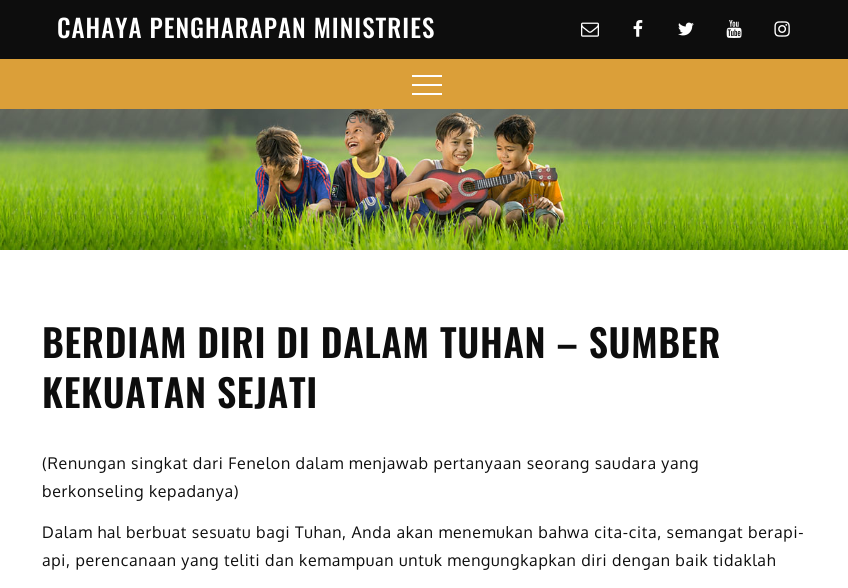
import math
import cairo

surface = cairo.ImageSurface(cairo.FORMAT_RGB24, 848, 588)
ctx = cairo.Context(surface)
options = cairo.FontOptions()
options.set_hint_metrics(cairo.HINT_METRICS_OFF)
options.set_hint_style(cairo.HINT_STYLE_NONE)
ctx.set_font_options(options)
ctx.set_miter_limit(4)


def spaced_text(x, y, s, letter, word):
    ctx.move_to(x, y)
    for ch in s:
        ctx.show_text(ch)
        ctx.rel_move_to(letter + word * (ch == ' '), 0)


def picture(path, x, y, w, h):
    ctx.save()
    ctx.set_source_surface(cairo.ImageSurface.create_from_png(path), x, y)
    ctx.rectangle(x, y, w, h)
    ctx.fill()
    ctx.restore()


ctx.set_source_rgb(1, 1, 1)
ctx.paint()
ctx.set_source_rgb(0.051, 0.051, 0.051)
ctx.rectangle(0, 0, 848, 59)
ctx.fill()
ctx.select_font_face("Oswald Medium")
ctx.set_font_size(25)
ctx.set_source_rgb(1, 1, 1)
spaced_text(57, 38, "CAHAYA PENGHARAPAN MINISTRIES", 1, 0)
picture("img1.png", 581, 22, 18, 15)
picture("img2.png", 633, 20, 10, 17)
picture("img3.png", 678, 22, 16, 14)
picture("img4.png", 726, 20, 16, 18)
picture("img5.png", 774, 21, 16, 16)
ctx.set_source_rgb(0.859, 0.624, 0.224)
ctx.rectangle(0, 59, 848, 50)
ctx.fill()
ctx.set_source_rgb(1, 1, 1)
ctx.rectangle(412, 75, 30, 2)
ctx.fill()
ctx.rectangle(412, 84, 30, 2)
ctx.fill()
ctx.rectangle(412, 93, 30, 2)
ctx.fill()
picture("img6.png", 0, 109, 848, 141)
ctx.select_font_face("Oxygen")
ctx.set_font_size(16)
ctx.set_source_rgb(0.424, 0.412, 0.361)
spaced_text(348, 123, "ew-", 0.7, 0)
ctx.select_font_face("Oswald SemiBold")
ctx.set_font_size(38)
ctx.set_source_rgb(0.051, 0.051, 0.051)
spaced_text(42, 358, "BERDIAM DIRI DI DALAM TUHAN – SUMBER", 0.7, 0)
spaced_text(42, 408, "KEKUATAN SEJATI", 0.7, 0)
ctx.select_font_face("Oxygen")
ctx.set_font_size(16)
spaced_text(42, 469, "(Renungan singkat dari Fenelon dalam menjawab pertanyaan seorang saudara yang", 0.7, 0)
spaced_text(42, 497, "berkonseling kepadanya)", 0.7, 0)
spaced_text(42, 538, "Dalam hal berbuat sesuatu bagi Tuhan, Anda akan menemukan bahwa cita-cita, semangat berapi-", 0.7, 0)
spaced_text(42, 566, "api, perencanaan yang teliti dan kemampuan untuk mengungkapkan diri dengan baik tidaklah", 0.7, 0)
surface.write_to_png("page.png")
